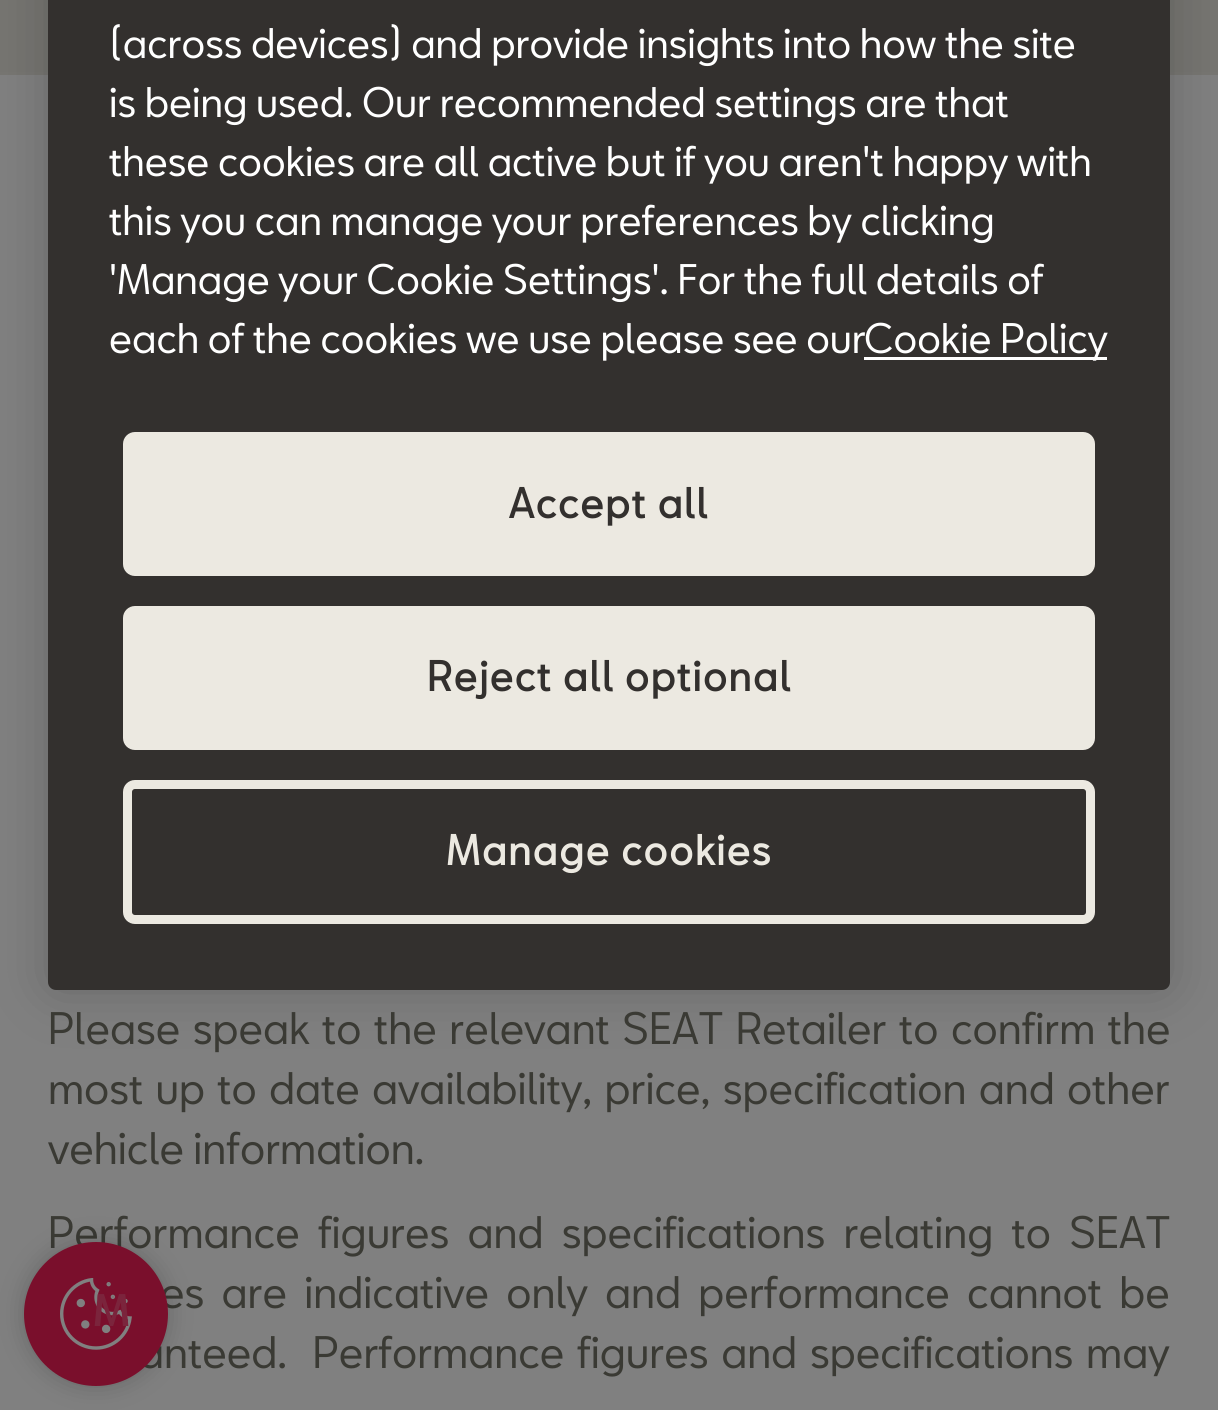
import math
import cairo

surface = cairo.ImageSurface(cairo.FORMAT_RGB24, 1218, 1410)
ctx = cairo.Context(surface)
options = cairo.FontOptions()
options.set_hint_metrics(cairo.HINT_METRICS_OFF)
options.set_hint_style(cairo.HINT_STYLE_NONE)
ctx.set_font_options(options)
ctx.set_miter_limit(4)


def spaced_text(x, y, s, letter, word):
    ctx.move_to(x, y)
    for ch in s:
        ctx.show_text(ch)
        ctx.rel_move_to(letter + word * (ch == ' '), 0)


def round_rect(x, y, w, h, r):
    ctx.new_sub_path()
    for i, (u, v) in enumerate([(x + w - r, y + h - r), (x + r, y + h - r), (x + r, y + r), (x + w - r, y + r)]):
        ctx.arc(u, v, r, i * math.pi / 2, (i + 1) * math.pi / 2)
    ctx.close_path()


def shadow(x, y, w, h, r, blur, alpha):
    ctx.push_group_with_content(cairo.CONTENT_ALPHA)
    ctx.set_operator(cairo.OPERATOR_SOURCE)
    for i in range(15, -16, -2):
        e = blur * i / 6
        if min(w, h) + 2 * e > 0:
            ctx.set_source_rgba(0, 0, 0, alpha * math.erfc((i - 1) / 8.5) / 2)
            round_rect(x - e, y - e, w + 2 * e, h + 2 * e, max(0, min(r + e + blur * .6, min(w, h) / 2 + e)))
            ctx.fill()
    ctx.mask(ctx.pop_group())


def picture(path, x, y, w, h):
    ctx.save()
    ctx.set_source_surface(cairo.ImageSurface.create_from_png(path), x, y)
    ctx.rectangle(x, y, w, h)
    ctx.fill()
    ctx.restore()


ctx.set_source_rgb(0.502, 0.502, 0.502)
ctx.paint()
ctx.set_source_rgb(0.463, 0.459, 0.443)
ctx.rectangle(0, 0, 1218, 72)
ctx.fill()
ctx.set_source_rgb(0.467, 0.463, 0.447)
ctx.rectangle(0, 72, 1218, 3)
ctx.fill()
ctx.set_source_rgb(0, 0, 0)
shadow(48, -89, 1122, 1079, 8, 27, 0.2)
ctx.set_source_rgb(0.2, 0.188, 0.18)
round_rect(48, -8, 1122, 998, 8)
ctx.fill()
ctx.select_font_face("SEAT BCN")
ctx.set_font_size(39.4)
ctx.set_source_rgb(1, 1, 1)
ctx.move_to(109, 58)
ctx.show_text("(across devices) and provide insights into how the site")
ctx.move_to(109, 117)
ctx.show_text("is being used. Our recommended settings are that")
ctx.move_to(109, 176)
ctx.show_text("these cookies are all active but if you aren't happy with")
ctx.move_to(109, 235)
ctx.show_text("this you can manage your preferences by clicking")
ctx.move_to(109, 294)
ctx.show_text("'Manage your Cookie Settings'. For the full details of")
ctx.move_to(109, 353)
ctx.show_text("each of the cookies we use please see our")
ctx.rectangle(864, 357, 243, 3)
ctx.fill()
ctx.move_to(864, 353)
ctx.show_text("Cookie Policy")
ctx.set_source_rgb(0.925, 0.914, 0.882)
round_rect(127.5, 436.5, 963, 135, 7.5)
ctx.fill_preserve()
ctx.set_line_width(9)
ctx.stroke()
ctx.select_font_face("SEAT BCN", cairo.FONT_SLANT_NORMAL, cairo.FONT_WEIGHT_BOLD)
ctx.set_source_rgb(0.2, 0.188, 0.18)
spaced_text(509, 518, "Accept all", 2, 0)
ctx.set_source_rgb(0.925, 0.914, 0.882)
round_rect(127.5, 610.5, 963, 135, 7.5)
ctx.fill_preserve()
ctx.stroke()
ctx.set_source_rgb(0.2, 0.188, 0.18)
spaced_text(427, 691, "Reject all optional", 2, 0)
round_rect(127.5, 784.5, 963, 135, 7.5)
ctx.set_source_rgb(0.925, 0.914, 0.882)
ctx.stroke()
spaced_text(446, 865, "Manage cookies", 2, 0)
ctx.select_font_face("SEAT BCN")
ctx.set_font_size(42)
ctx.set_source_rgb(0.227, 0.227, 0.204)
spaced_text(48, 1044, "Please speak to the relevant SEAT Retailer to confirm the", 0, 3.25)
spaced_text(48, 1104, "most up to date availability, price, specification and other", 0, 3)
ctx.move_to(48, 1164)
ctx.show_text("vehicle information.")
spaced_text(48, 1248, "Performance figures and specifications relating to SEAT", 0, 9)
spaced_text(160, 1308, "es are indicative only and performance cannot be", 0, 8)
spaced_text(138, 1368, "anteed.  Performance figures and specifications may", 0, 3.5)
ctx.set_source_rgb(0, 0, 0)
shadow(24, 1242, 144, 144, 72, 12, 0.2)
ctx.set_source_rgb(0.478, 0.059, 0.173)
ctx.arc(96, 1314, 72, 0, 2 * math.pi)
ctx.fill()
picture("img1.png", 60, 1278, 72, 72)
ctx.select_font_face("SEAT BCN Medium")
ctx.set_source_rgb(0.482, 0.141, 0.235)
ctx.move_to(93, 1326)
ctx.show_text("M")
surface.write_to_png("page.png")
